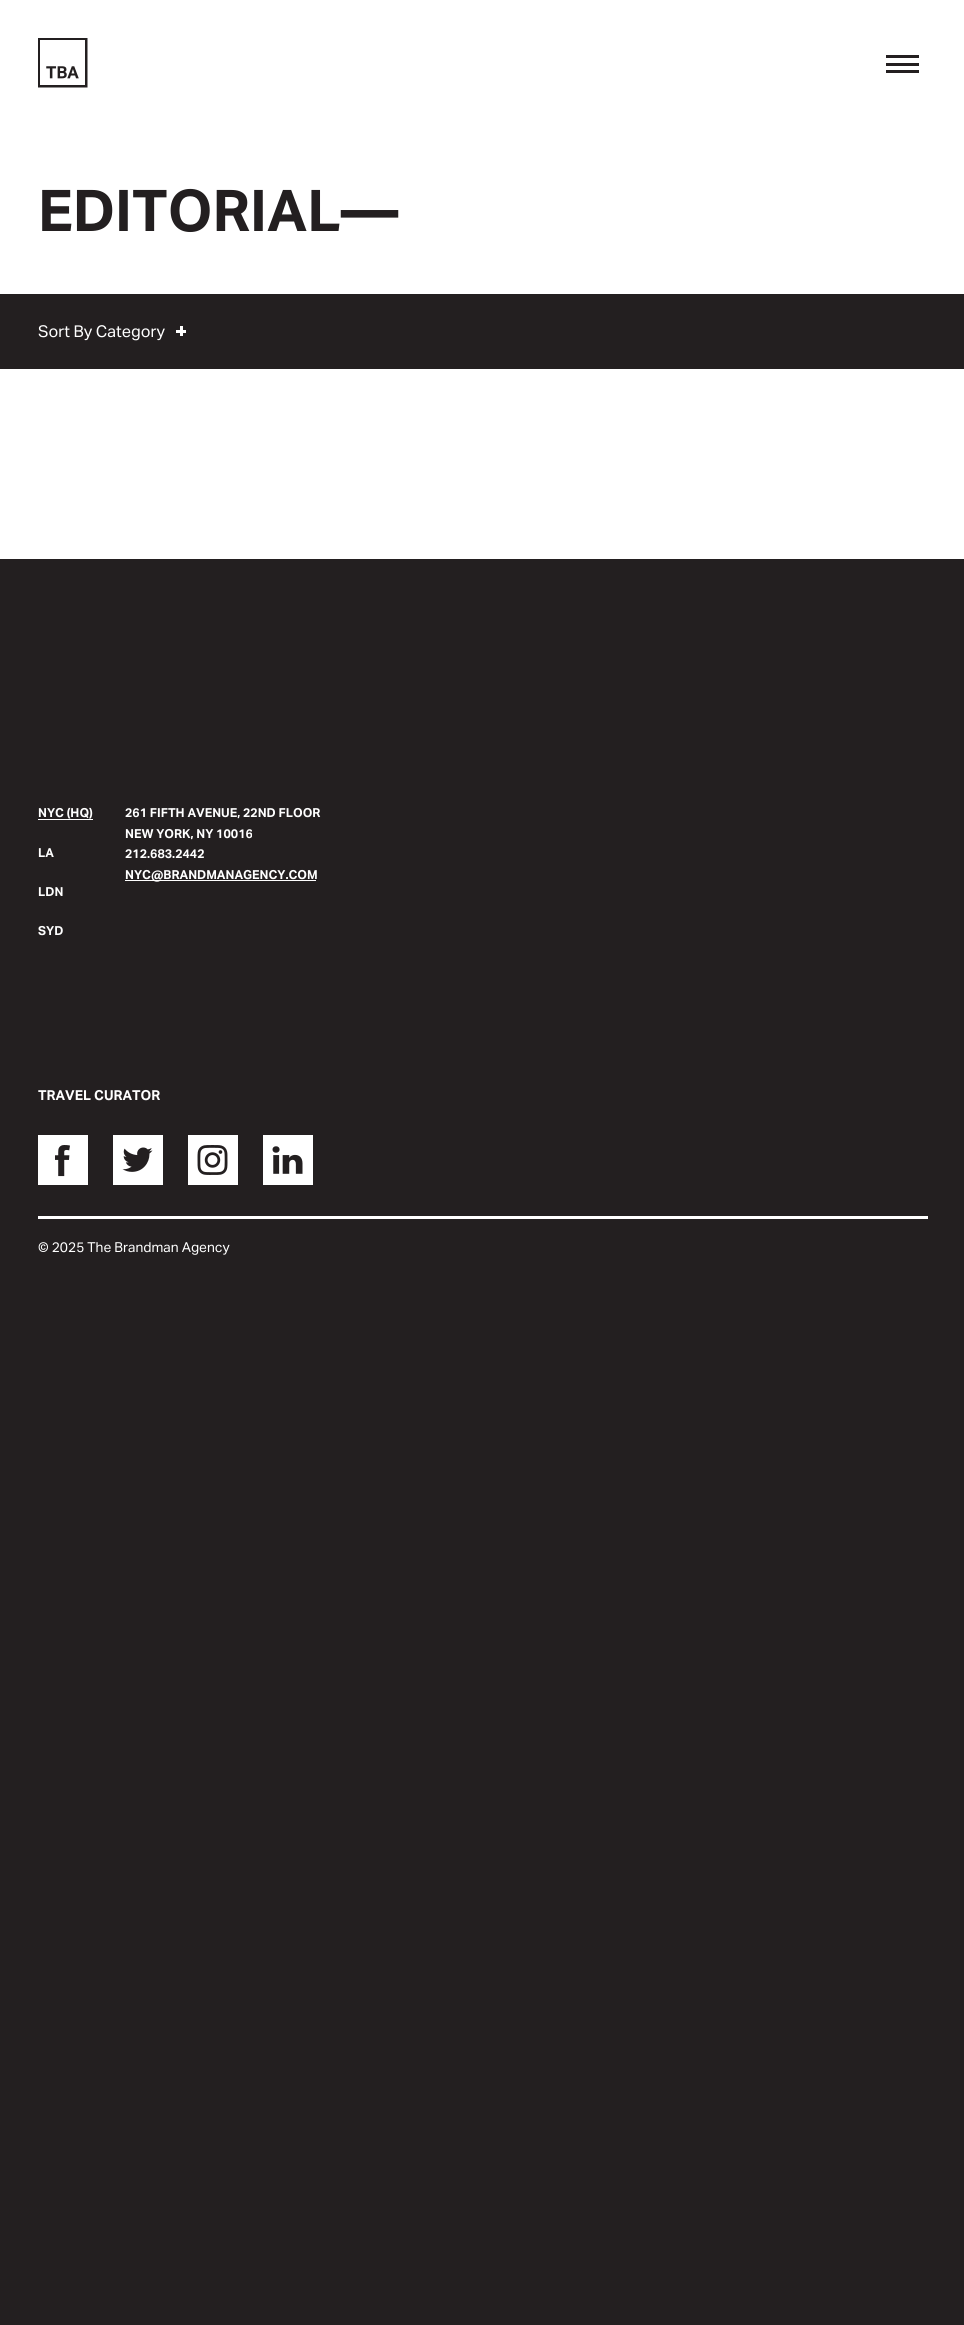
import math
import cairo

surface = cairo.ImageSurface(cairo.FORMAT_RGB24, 964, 2325)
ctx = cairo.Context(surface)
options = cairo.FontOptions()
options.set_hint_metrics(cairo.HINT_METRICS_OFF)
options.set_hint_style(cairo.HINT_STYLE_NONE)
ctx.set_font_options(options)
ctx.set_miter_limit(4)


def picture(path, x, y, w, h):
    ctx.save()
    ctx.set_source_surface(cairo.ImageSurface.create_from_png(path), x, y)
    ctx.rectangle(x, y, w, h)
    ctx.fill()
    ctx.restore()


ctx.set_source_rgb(0.137, 0.122, 0.125)
ctx.paint()
ctx.set_source_rgb(1, 1, 1)
ctx.rectangle(0, 0, 964, 559)
ctx.fill()
picture("img1.png", 38, 38, 50, 50)
ctx.set_source_rgb(0.137, 0.122, 0.125)
ctx.rectangle(886, 55, 33, 3)
ctx.fill()
ctx.rectangle(886, 63, 33, 3)
ctx.fill()
ctx.rectangle(886, 70, 33, 3)
ctx.fill()
ctx.select_font_face("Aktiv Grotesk", cairo.FONT_SLANT_NORMAL, cairo.FONT_WEIGHT_BOLD)
ctx.set_font_size(57.5)
ctx.move_to(38, 231)
ctx.show_text("EDITORIAL—")
ctx.rectangle(0, 294, 964, 75)
ctx.fill()
ctx.select_font_face("Aktiv Grotesk")
ctx.set_font_size(16.25)
ctx.set_source_rgb(1, 1, 1)
ctx.move_to(38, 337)
ctx.show_text("Sort By Category")
ctx.rectangle(180, 326, 3, 10)
ctx.fill()
ctx.rectangle(176, 330, 10, 3)
ctx.fill()
ctx.select_font_face("Aktiv Grotesk", cairo.FONT_SLANT_NORMAL, cairo.FONT_WEIGHT_BOLD)
ctx.set_font_size(12.4)
ctx.move_to(38, 817)
ctx.show_text("NYC (HQ)")
ctx.rectangle(38, 819, 55, 1)
ctx.fill()
ctx.move_to(38, 857)
ctx.show_text("LA")
ctx.move_to(38, 896)
ctx.show_text("LDN")
ctx.move_to(38, 935)
ctx.show_text("SYD")
ctx.move_to(125, 817)
ctx.show_text("261 FIFTH AVENUE, 22ND FLOOR")
ctx.move_to(125, 838)
ctx.show_text("NEW YORK, NY 10016")
ctx.move_to(125, 858)
ctx.show_text("212.683.2442")
ctx.rectangle(125, 880, 191, 1)
ctx.fill()
ctx.move_to(125, 879)
ctx.show_text("NYC@BRANDMANAGENCY.COM")
ctx.set_font_size(13.75)
ctx.move_to(38, 1100)
ctx.show_text("TRAVEL CURATOR")
ctx.rectangle(38, 1216, 890, 3)
ctx.fill()
picture("img2.png", 38, 1135, 50, 50)
picture("img3.png", 113, 1135, 50, 50)
picture("img4.png", 188, 1135, 50, 50)
picture("img5.png", 263, 1135, 50, 50)
ctx.select_font_face("Aktiv Grotesk")
ctx.move_to(38, 1252)
ctx.show_text("© 2025 The Brandman Agency")
surface.write_to_png("page.png")
